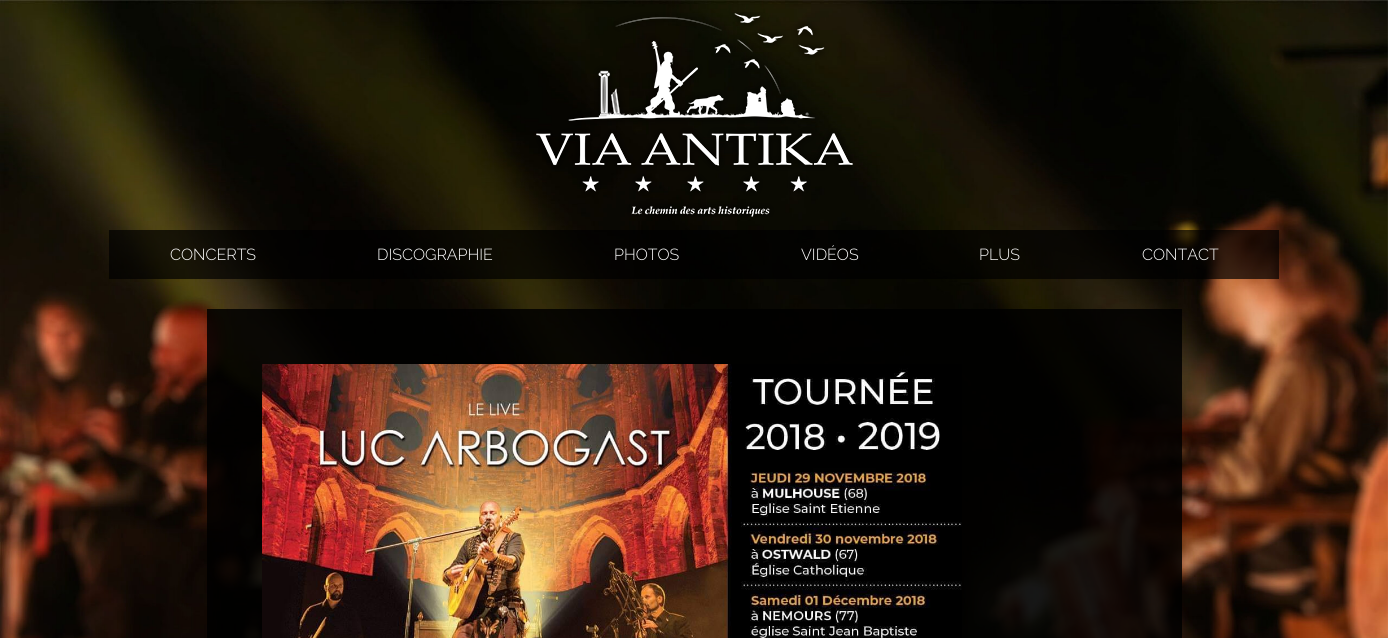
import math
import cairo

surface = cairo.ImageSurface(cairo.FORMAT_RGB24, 1388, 638)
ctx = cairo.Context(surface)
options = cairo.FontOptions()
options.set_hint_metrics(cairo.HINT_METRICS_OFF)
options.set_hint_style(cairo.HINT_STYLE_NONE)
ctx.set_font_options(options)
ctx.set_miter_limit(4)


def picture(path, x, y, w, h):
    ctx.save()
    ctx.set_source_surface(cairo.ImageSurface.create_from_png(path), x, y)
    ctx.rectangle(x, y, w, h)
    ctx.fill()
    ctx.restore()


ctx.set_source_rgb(1, 1, 1)
ctx.paint()
picture("img1.png", 0, 0, 1388, 638)
picture("img2.png", 536, 12, 317, 205)
ctx.set_source_rgba(0, 0, 0, 0.7)
ctx.rectangle(109, 230, 1170, 49)
ctx.fill()
ctx.select_font_face("Raleway Light")
ctx.set_font_size(16)
ctx.set_source_rgb(1, 1, 1)
ctx.move_to(170, 260)
ctx.show_text("CONCERTS")
ctx.move_to(377, 260)
ctx.show_text("DISCOGRAPHIE")
ctx.move_to(614, 260)
ctx.show_text("PHOTOS")
ctx.move_to(801, 260)
ctx.show_text("VIDÉOS")
ctx.move_to(979, 260)
ctx.show_text("PLUS")
ctx.move_to(1142, 260)
ctx.show_text("CONTACT")
ctx.set_source_rgba(0, 0, 0, 0.85)
ctx.rectangle(207, 309, 975, 329)
ctx.fill()
picture("img3.png", 262, 364, 700, 274)
surface.write_to_png("page.png")
